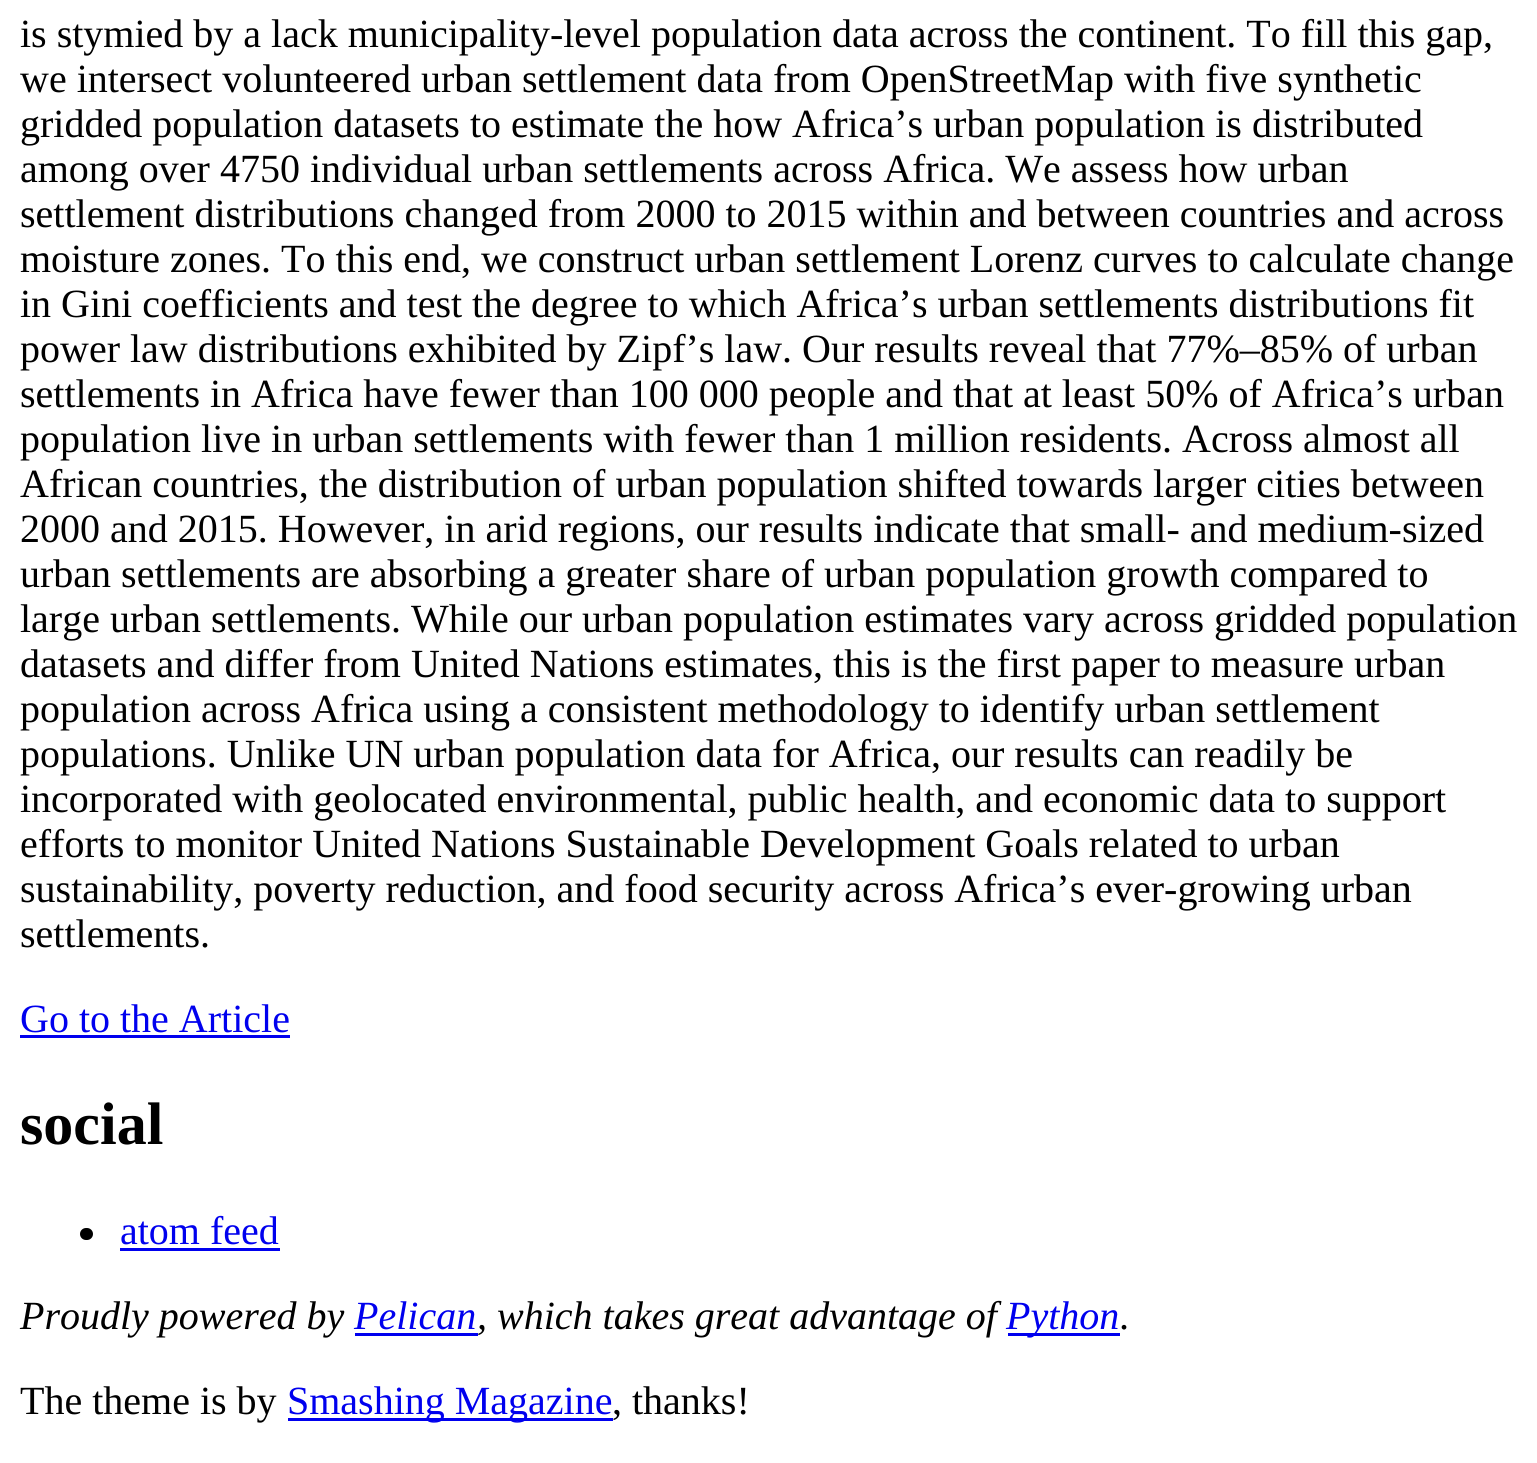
import math
import cairo

surface = cairo.ImageSurface(cairo.FORMAT_RGB24, 1537, 1463)
ctx = cairo.Context(surface)
options = cairo.FontOptions()
options.set_hint_metrics(cairo.HINT_METRICS_OFF)
options.set_hint_style(cairo.HINT_STYLE_NONE)
ctx.set_font_options(options)
ctx.set_miter_limit(4)


def round_rect(x, y, w, h, r):
    ctx.new_sub_path()
    for i, (u, v) in enumerate([(x + w - r, y + h - r), (x + r, y + h - r), (x + r, y + r), (x + w - r, y + r)]):
        ctx.arc(u, v, r, i * math.pi / 2, (i + 1) * math.pi / 2)
    ctx.close_path()


ctx.set_source_rgb(1, 1, 1)
ctx.paint()
ctx.select_font_face("Liberation Serif")
ctx.set_font_size(40)
ctx.set_source_rgb(0, 0, 0)
ctx.move_to(20, 47)
ctx.show_text("is stymied by a lack municipality-level population data across the continent. To fill this gap,")
ctx.move_to(20, 92)
ctx.show_text("we intersect volunteered urban settlement data from OpenStreetMap with five synthetic")
ctx.move_to(20, 137)
ctx.show_text("gridded population datasets to estimate the how Africa’s urban population is distributed")
ctx.move_to(20, 182)
ctx.show_text("among over 4750 individual urban settlements across Africa. We assess how urban")
ctx.move_to(20, 227)
ctx.show_text("settlement distributions changed from 2000 to 2015 within and between countries and across")
ctx.move_to(20, 272)
ctx.show_text("moisture zones. To this end, we construct urban settlement Lorenz curves to calculate change")
ctx.move_to(20, 317)
ctx.show_text("in Gini coefficients and test the degree to which Africa’s urban settlements distributions fit")
ctx.move_to(20, 362)
ctx.show_text("power law distributions exhibited by Zipf’s law. Our results reveal that 77%–85% of urban")
ctx.move_to(20, 407)
ctx.show_text("settlements in Africa have fewer than 100 000 people and that at least 50% of Africa’s urban")
ctx.move_to(20, 452)
ctx.show_text("population live in urban settlements with fewer than 1 million residents. Across almost all")
ctx.move_to(20, 497)
ctx.show_text("African countries, the distribution of urban population shifted towards larger cities between")
ctx.move_to(20, 542)
ctx.show_text("2000 and 2015. However, in arid regions, our results indicate that small- and medium-sized")
ctx.move_to(20, 587)
ctx.show_text("urban settlements are absorbing a greater share of urban population growth compared to")
ctx.move_to(20, 632)
ctx.show_text("large urban settlements. While our urban population estimates vary across gridded population")
ctx.move_to(20, 677)
ctx.show_text("datasets and differ from United Nations estimates, this is the first paper to measure urban")
ctx.move_to(20, 722)
ctx.show_text("population across Africa using a consistent methodology to identify urban settlement")
ctx.move_to(20, 767)
ctx.show_text("populations. Unlike UN urban population data for Africa, our results can readily be")
ctx.move_to(20, 812)
ctx.show_text("incorporated with geolocated environmental, public health, and economic data to support")
ctx.move_to(20, 857)
ctx.show_text("efforts to monitor United Nations Sustainable Development Goals related to urban")
ctx.move_to(20, 902)
ctx.show_text("sustainability, poverty reduction, and food security across Africa’s ever-growing urban")
ctx.move_to(20, 947)
ctx.show_text("settlements.")
ctx.set_source_rgb(0, 0, 0.933)
ctx.move_to(20, 1032)
ctx.show_text("Go to the Article")
ctx.rectangle(20, 1035, 270, 3)
ctx.fill()
ctx.select_font_face("Liberation Serif", cairo.FONT_SLANT_NORMAL, cairo.FONT_WEIGHT_BOLD)
ctx.set_font_size(60)
ctx.set_source_rgb(0, 0, 0)
ctx.move_to(20, 1144)
ctx.show_text("social")
round_rect(80, 1228, 13, 12, 6)
ctx.fill()
ctx.select_font_face("Liberation Serif")
ctx.set_font_size(40)
ctx.set_source_rgb(0, 0, 0.933)
ctx.move_to(120, 1244)
ctx.show_text("atom feed")
ctx.rectangle(120, 1248, 160, 3)
ctx.fill()
ctx.select_font_face("Liberation Serif", cairo.FONT_SLANT_ITALIC)
ctx.set_source_rgb(0, 0, 0)
ctx.move_to(20, 1329)
ctx.show_text("Proudly powered by")
ctx.set_source_rgb(0, 0, 0.933)
ctx.move_to(354, 1329)
ctx.show_text("Pelican")
ctx.rectangle(355, 1333, 123, 3)
ctx.fill()
ctx.set_source_rgb(0, 0, 0)
ctx.move_to(477, 1329)
ctx.show_text(", which takes great advantage of")
ctx.set_source_rgb(0, 0, 0.933)
ctx.rectangle(1008, 1333, 112, 3)
ctx.fill()
ctx.move_to(1006, 1329)
ctx.show_text("Python")
ctx.set_source_rgb(0, 0, 0)
ctx.move_to(1120, 1329)
ctx.show_text(".")
ctx.select_font_face("Liberation Serif")
ctx.move_to(20, 1414)
ctx.show_text("The theme is by")
ctx.set_source_rgb(0, 0, 0.933)
ctx.rectangle(288, 1418, 325, 3)
ctx.fill()
ctx.move_to(287, 1414)
ctx.show_text("Smashing Magazine")
ctx.set_source_rgb(0, 0, 0)
ctx.move_to(612, 1414)
ctx.show_text(", thanks!")
surface.write_to_png("page.png")
